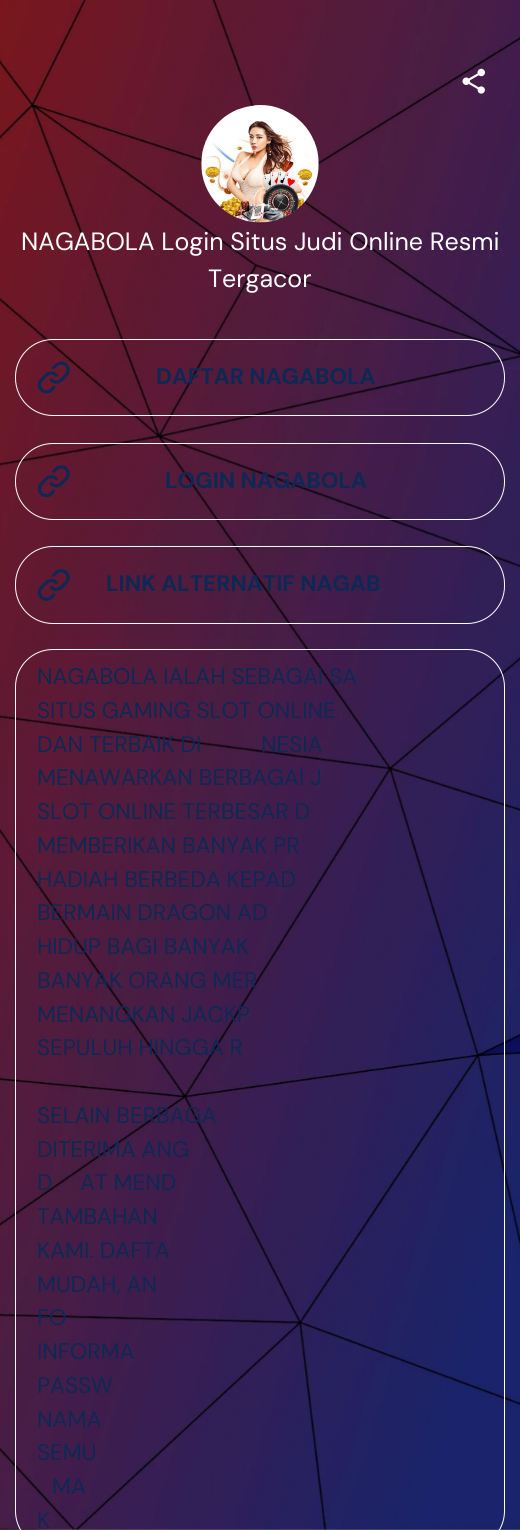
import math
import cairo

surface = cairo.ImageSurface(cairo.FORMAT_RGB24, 520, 1530)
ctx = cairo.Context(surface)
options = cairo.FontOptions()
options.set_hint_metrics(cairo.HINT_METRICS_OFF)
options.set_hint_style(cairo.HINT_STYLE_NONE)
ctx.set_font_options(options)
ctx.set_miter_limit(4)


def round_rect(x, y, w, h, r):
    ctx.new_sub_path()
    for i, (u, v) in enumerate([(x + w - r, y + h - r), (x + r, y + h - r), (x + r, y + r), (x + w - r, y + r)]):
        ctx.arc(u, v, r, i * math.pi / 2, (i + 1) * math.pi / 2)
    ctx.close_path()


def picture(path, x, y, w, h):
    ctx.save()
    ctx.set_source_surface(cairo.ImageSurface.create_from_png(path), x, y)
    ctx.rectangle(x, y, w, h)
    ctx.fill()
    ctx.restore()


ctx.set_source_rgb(1, 1, 1)
ctx.paint()
picture("img1.png", 0, 0, 520, 1530)
picture("img2.png", 462, 68, 23, 26)
picture("img3.png", 201, 105, 118, 118)
ctx.select_font_face("DM Sans")
ctx.set_font_size(25)
ctx.set_source_rgb(1, 1, 1)
ctx.move_to(21, 250)
ctx.show_text("NAGABOLA Login Situs Judi Online Resmi")
ctx.move_to(208, 287)
ctx.show_text("Tergacor")
round_rect(15.5, 339.5, 489, 76, 37.5)
ctx.set_line_width(1)
ctx.stroke()
picture("img4.png", 37, 361, 33, 33)
ctx.select_font_face("DM Sans", cairo.FONT_SLANT_NORMAL, cairo.FONT_WEIGHT_BOLD)
ctx.set_font_size(22.5)
ctx.set_source_rgb(0.051, 0.157, 0.329)
ctx.move_to(156, 384)
ctx.show_text("DAFTAR NAGABOLA")
round_rect(15.5, 443.5, 489, 76, 37.5)
ctx.set_source_rgb(1, 1, 1)
ctx.stroke()
picture("img5.png", 37, 465, 33, 33)
ctx.set_source_rgb(0.051, 0.157, 0.329)
ctx.move_to(165, 488)
ctx.show_text("LOGIN NAGABOLA")
round_rect(15.5, 546.5, 489, 77, 37.5)
ctx.set_source_rgb(1, 1, 1)
ctx.stroke()
picture("img6.png", 37, 569, 33, 32)
ctx.set_source_rgb(0.051, 0.157, 0.329)
ctx.move_to(106, 591)
ctx.show_text("LINK ALTERNATIF NAGAB")
round_rect(15.5, 649.5, 489, 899, 37.5)
ctx.set_source_rgb(1, 1, 1)
ctx.stroke()
ctx.select_font_face("DM Sans")
ctx.set_source_rgb(0.051, 0.157, 0.329)
ctx.move_to(37, 684)
ctx.show_text("NAGABOLA IALAH SEBAGAI SA")
ctx.move_to(37, 718)
ctx.show_text("SITUS GAMING SLOT ONLINE")
ctx.move_to(37, 752)
ctx.show_text("DAN TERBAIK DI")
ctx.move_to(261, 752)
ctx.show_text("NESIA")
ctx.move_to(37, 785)
ctx.show_text("MENAWARKAN BERBAGAI J")
ctx.move_to(37, 819)
ctx.show_text("SLOT ONLINE TERBESAR D")
ctx.move_to(37, 853)
ctx.show_text("MEMBERIKAN BANYAK PR")
ctx.move_to(37, 887)
ctx.show_text("HADIAH BERBEDA KEPAD")
ctx.move_to(37, 920)
ctx.show_text("BERMAIN DRAGON AD")
ctx.move_to(37, 954)
ctx.show_text("HIDUP BAGI BANYAK")
ctx.move_to(37, 988)
ctx.show_text("BANYAK ORANG MER")
ctx.move_to(37, 1022)
ctx.show_text("MENANGKAN JACKP")
ctx.move_to(37, 1055)
ctx.show_text("SEPULUH HINGGA R")
ctx.move_to(37, 1123)
ctx.show_text("SELAIN BERBAGA")
ctx.move_to(37, 1157)
ctx.show_text("DITERIMA ANG")
ctx.move_to(37, 1190)
ctx.show_text("D")
ctx.move_to(80, 1190)
ctx.show_text("AT MEND")
ctx.move_to(37, 1224)
ctx.show_text("TAMBAHAN")
ctx.move_to(37, 1258)
ctx.show_text("KAMI. DAFTA")
ctx.move_to(37, 1292)
ctx.show_text("MUDAH, AN")
ctx.move_to(37, 1325)
ctx.show_text("FO")
ctx.move_to(37, 1359)
ctx.show_text("INFORMA")
ctx.move_to(37, 1393)
ctx.show_text("PASSW")
ctx.move_to(37, 1427)
ctx.show_text("NAMA")
ctx.move_to(37, 1460)
ctx.show_text("SEMU")
ctx.move_to(52, 1494)
ctx.show_text("MA")
ctx.move_to(37, 1528)
ctx.show_text("K")
surface.write_to_png("page.png")
